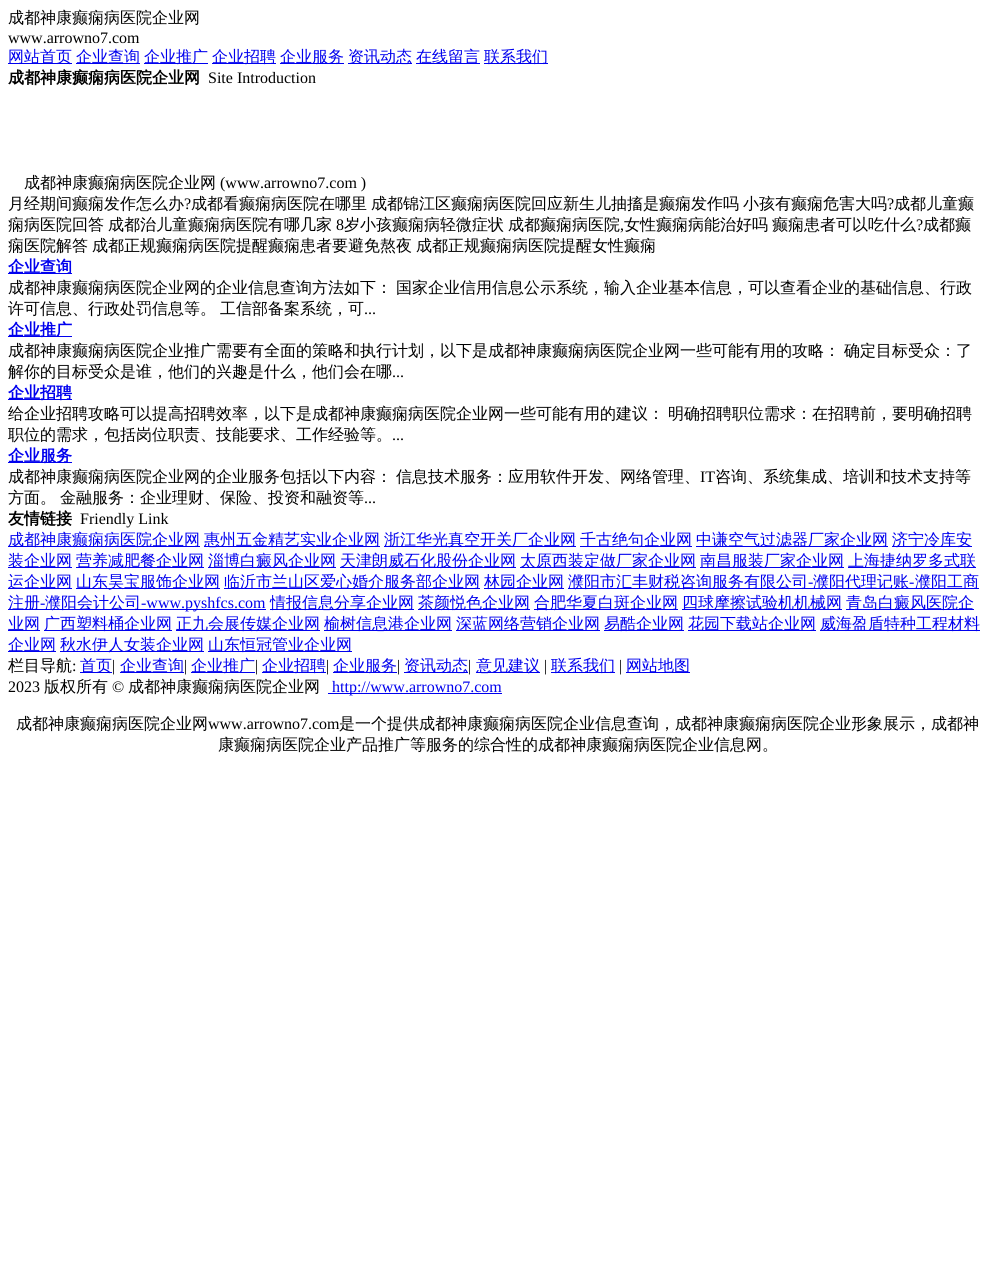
import math
import cairo

surface = cairo.ImageSurface(cairo.FORMAT_RGB24, 995, 1286)
ctx = cairo.Context(surface)
options = cairo.FontOptions()
options.set_hint_metrics(cairo.HINT_METRICS_OFF)
options.set_hint_style(cairo.HINT_STYLE_NONE)
ctx.set_font_options(options)
ctx.set_miter_limit(4)


ctx.set_source_rgb(1, 1, 1)
ctx.paint()
ctx.select_font_face("WenQuanYi Zen Hei Medium")
ctx.set_font_size(16)
ctx.set_source_rgb(0, 0, 0)
ctx.move_to(8, 23)
ctx.show_text("成都神康癫痫病医院企业网")
ctx.select_font_face("Liberation Serif")
ctx.move_to(8, 43)
ctx.show_text("www.arrowno7.com")
ctx.set_source_rgb(0, 0, 0.933)
ctx.rectangle(8, 63, 64, 1)
ctx.fill()
ctx.select_font_face("WenQuanYi Zen Hei Medium")
ctx.move_to(8, 62)
ctx.show_text("网站首页")
ctx.rectangle(76, 63, 64, 1)
ctx.fill()
ctx.move_to(76, 62)
ctx.show_text("企业查询")
ctx.rectangle(144, 63, 64, 1)
ctx.fill()
ctx.move_to(144, 62)
ctx.show_text("企业推广")
ctx.rectangle(212, 63, 64, 1)
ctx.fill()
ctx.move_to(212, 62)
ctx.show_text("企业招聘")
ctx.rectangle(280, 63, 64, 1)
ctx.fill()
ctx.move_to(280, 62)
ctx.show_text("企业服务")
ctx.rectangle(348, 63, 64, 1)
ctx.fill()
ctx.move_to(348, 62)
ctx.show_text("资讯动态")
ctx.rectangle(416, 63, 64, 1)
ctx.fill()
ctx.move_to(416, 62)
ctx.show_text("在线留言")
ctx.rectangle(484, 63, 64, 1)
ctx.fill()
ctx.move_to(484, 62)
ctx.show_text("联系我们")
ctx.select_font_face("WenQuanYi Zen Hei", cairo.FONT_SLANT_NORMAL, cairo.FONT_WEIGHT_BOLD)
ctx.set_source_rgb(0, 0, 0)
ctx.move_to(8, 83)
ctx.show_text("成都神康癫痫病医院企业网")
ctx.select_font_face("Liberation Serif")
ctx.move_to(208, 83)
ctx.show_text("Site Introduction")
ctx.select_font_face("WenQuanYi Zen Hei Medium")
ctx.move_to(24, 188)
ctx.show_text("成都神康癫痫病医院企业网")
ctx.select_font_face("Liberation Serif")
ctx.move_to(220, 188)
ctx.show_text("(www.arrowno7.com )")
ctx.select_font_face("WenQuanYi Zen Hei Medium")
ctx.move_to(8, 209)
ctx.show_text("月经期间癫痫发作怎么办")
ctx.select_font_face("Liberation Serif")
ctx.move_to(184, 209)
ctx.show_text("?")
ctx.select_font_face("WenQuanYi Zen Hei Medium")
ctx.move_to(191, 209)
ctx.show_text("成都看癫痫病医院在哪里")
ctx.move_to(371, 209)
ctx.show_text("成都锦江区癫痫病医院回应新生儿抽搐是癫痫发作吗")
ctx.move_to(743, 209)
ctx.show_text("小孩有癫痫危害大吗")
ctx.select_font_face("Liberation Serif")
ctx.move_to(887, 209)
ctx.show_text("?")
ctx.select_font_face("WenQuanYi Zen Hei Medium")
ctx.move_to(894, 209)
ctx.show_text("成都儿童癫")
ctx.move_to(8, 230)
ctx.show_text("痫病医院回答")
ctx.move_to(108, 230)
ctx.show_text("成都治儿童癫痫病医院有哪几家")
ctx.select_font_face("Liberation Serif")
ctx.move_to(336, 230)
ctx.show_text("8")
ctx.select_font_face("WenQuanYi Zen Hei Medium")
ctx.move_to(344, 230)
ctx.show_text("岁小孩癫痫病轻微症状")
ctx.move_to(508, 230)
ctx.show_text("成都癫痫病医院")
ctx.select_font_face("Liberation Serif")
ctx.move_to(620, 230)
ctx.show_text(",")
ctx.select_font_face("WenQuanYi Zen Hei Medium")
ctx.move_to(624, 230)
ctx.show_text("女性癫痫病能治好吗")
ctx.move_to(772, 230)
ctx.show_text("癫痫患者可以吃什么")
ctx.select_font_face("Liberation Serif")
ctx.move_to(916, 230)
ctx.show_text("?")
ctx.select_font_face("WenQuanYi Zen Hei Medium")
ctx.move_to(923, 230)
ctx.show_text("成都癫")
ctx.move_to(8, 251)
ctx.show_text("痫医院解答")
ctx.move_to(92, 251)
ctx.show_text("成都正规癫痫病医院提醒癫痫患者要避免熬夜")
ctx.move_to(416, 251)
ctx.show_text("成都正规癫痫病医院提醒女性癫痫")
ctx.set_source_rgb(0, 0, 0.933)
ctx.rectangle(8, 273, 64, 1)
ctx.fill()
ctx.select_font_face("WenQuanYi Zen Hei", cairo.FONT_SLANT_NORMAL, cairo.FONT_WEIGHT_BOLD)
ctx.move_to(8, 272)
ctx.show_text("企业查询")
ctx.select_font_face("WenQuanYi Zen Hei Medium")
ctx.set_source_rgb(0, 0, 0)
ctx.move_to(8, 293)
ctx.show_text("成都神康癫痫病医院企业网的企业信息查询方法如下：")
ctx.move_to(396, 293)
ctx.show_text("国家企业信用信息公示系统，输入企业基本信息，可以查看企业的基础信息、行政")
ctx.move_to(8, 314)
ctx.show_text("许可信息、行政处罚信息等。")
ctx.move_to(220, 314)
ctx.show_text("工信部备案系统，可")
ctx.select_font_face("Liberation Serif")
ctx.move_to(364, 314)
ctx.show_text("...")
ctx.set_source_rgb(0, 0, 0.933)
ctx.rectangle(8, 336, 64, 1)
ctx.fill()
ctx.select_font_face("WenQuanYi Zen Hei", cairo.FONT_SLANT_NORMAL, cairo.FONT_WEIGHT_BOLD)
ctx.move_to(8, 335)
ctx.show_text("企业推广")
ctx.select_font_face("WenQuanYi Zen Hei Medium")
ctx.set_source_rgb(0, 0, 0)
ctx.move_to(8, 356)
ctx.show_text("成都神康癫痫病医院企业推广需要有全面的策略和执行计划，以下是成都神康癫痫病医院企业网一些可能有用的攻略：")
ctx.move_to(844, 356)
ctx.show_text("确定目标受众：了")
ctx.move_to(8, 377)
ctx.show_text("解你的目标受众是谁，他们的兴趣是什么，他们会在哪")
ctx.select_font_face("Liberation Serif")
ctx.move_to(392, 377)
ctx.show_text("...")
ctx.set_source_rgb(0, 0, 0.933)
ctx.rectangle(8, 399, 64, 1)
ctx.fill()
ctx.select_font_face("WenQuanYi Zen Hei", cairo.FONT_SLANT_NORMAL, cairo.FONT_WEIGHT_BOLD)
ctx.move_to(8, 398)
ctx.show_text("企业招聘")
ctx.select_font_face("WenQuanYi Zen Hei Medium")
ctx.set_source_rgb(0, 0, 0)
ctx.move_to(8, 419)
ctx.show_text("给企业招聘攻略可以提高招聘效率，以下是成都神康癫痫病医院企业网一些可能有用的建议：")
ctx.move_to(668, 419)
ctx.show_text("明确招聘职位需求：在招聘前，要明确招聘")
ctx.move_to(8, 440)
ctx.show_text("职位的需求，包括岗位职责、技能要求、工作经验等。")
ctx.select_font_face("Liberation Serif")
ctx.move_to(392, 440)
ctx.show_text("...")
ctx.set_source_rgb(0, 0, 0.933)
ctx.rectangle(8, 462, 64, 1)
ctx.fill()
ctx.select_font_face("WenQuanYi Zen Hei", cairo.FONT_SLANT_NORMAL, cairo.FONT_WEIGHT_BOLD)
ctx.move_to(8, 461)
ctx.show_text("企业服务")
ctx.select_font_face("WenQuanYi Zen Hei Medium")
ctx.set_source_rgb(0, 0, 0)
ctx.move_to(8, 482)
ctx.show_text("成都神康癫痫病医院企业网的企业服务包括以下内容：")
ctx.move_to(396, 482)
ctx.show_text("信息技术服务：应用软件开发、网络管理、")
ctx.select_font_face("Liberation Serif")
ctx.move_to(700, 482)
ctx.show_text("IT")
ctx.select_font_face("WenQuanYi Zen Hei Medium")
ctx.move_to(715, 482)
ctx.show_text("咨询、系统集成、培训和技术支持等")
ctx.move_to(8, 503)
ctx.show_text("方面。")
ctx.move_to(60, 503)
ctx.show_text("金融服务：企业理财、保险、投资和融资等")
ctx.select_font_face("Liberation Serif")
ctx.move_to(364, 503)
ctx.show_text("...")
ctx.select_font_face("WenQuanYi Zen Hei", cairo.FONT_SLANT_NORMAL, cairo.FONT_WEIGHT_BOLD)
ctx.move_to(8, 524)
ctx.show_text("友情链接")
ctx.select_font_face("Liberation Serif")
ctx.move_to(80, 524)
ctx.show_text("Friendly Link")
ctx.set_source_rgb(0, 0, 0.933)
ctx.rectangle(8, 546, 192, 1)
ctx.fill()
ctx.select_font_face("WenQuanYi Zen Hei Medium")
ctx.move_to(8, 545)
ctx.show_text("成都神康癫痫病医院企业网")
ctx.rectangle(204, 546, 176, 1)
ctx.fill()
ctx.move_to(204, 545)
ctx.show_text("惠州五金精艺实业企业网")
ctx.rectangle(384, 546, 192, 1)
ctx.fill()
ctx.move_to(384, 545)
ctx.show_text("浙江华光真空开关厂企业网")
ctx.rectangle(580, 546, 112, 1)
ctx.fill()
ctx.move_to(580, 545)
ctx.show_text("千古绝句企业网")
ctx.rectangle(696, 546, 192, 1)
ctx.fill()
ctx.move_to(696, 545)
ctx.show_text("中谦空气过滤器厂家企业网")
ctx.rectangle(892, 546, 80, 1)
ctx.fill()
ctx.move_to(892, 545)
ctx.show_text("济宁冷库安")
ctx.rectangle(8, 567, 64, 1)
ctx.fill()
ctx.move_to(8, 566)
ctx.show_text("装企业网")
ctx.rectangle(76, 567, 128, 1)
ctx.fill()
ctx.move_to(76, 566)
ctx.show_text("营养减肥餐企业网")
ctx.rectangle(208, 567, 128, 1)
ctx.fill()
ctx.move_to(208, 566)
ctx.show_text("淄博白癜风企业网")
ctx.rectangle(340, 567, 176, 1)
ctx.fill()
ctx.move_to(340, 566)
ctx.show_text("天津朗威石化股份企业网")
ctx.rectangle(520, 567, 176, 1)
ctx.fill()
ctx.move_to(520, 566)
ctx.show_text("太原西装定做厂家企业网")
ctx.rectangle(700, 567, 144, 1)
ctx.fill()
ctx.move_to(700, 566)
ctx.show_text("南昌服装厂家企业网")
ctx.rectangle(848, 567, 128, 1)
ctx.fill()
ctx.move_to(848, 566)
ctx.show_text("上海捷纳罗多式联")
ctx.rectangle(8, 588, 64, 1)
ctx.fill()
ctx.move_to(8, 587)
ctx.show_text("运企业网")
ctx.rectangle(76, 588, 144, 1)
ctx.fill()
ctx.move_to(76, 587)
ctx.show_text("山东昊宝服饰企业网")
ctx.rectangle(224, 588, 256, 1)
ctx.fill()
ctx.move_to(224, 587)
ctx.show_text("临沂市兰山区爱心婚介服务部企业网")
ctx.rectangle(484, 588, 80, 1)
ctx.fill()
ctx.move_to(484, 587)
ctx.show_text("林园企业网")
ctx.rectangle(568, 588, 411, 1)
ctx.fill()
ctx.move_to(568, 587)
ctx.show_text("濮阳市汇丰财税咨询服务有限公司")
ctx.select_font_face("Liberation Serif")
ctx.move_to(808, 587)
ctx.show_text("-")
ctx.select_font_face("WenQuanYi Zen Hei Medium")
ctx.move_to(813, 587)
ctx.show_text("濮阳代理记账")
ctx.select_font_face("Liberation Serif")
ctx.move_to(909, 587)
ctx.show_text("-")
ctx.select_font_face("WenQuanYi Zen Hei Medium")
ctx.move_to(915, 587)
ctx.show_text("濮阳工商")
ctx.rectangle(8, 609, 258, 1)
ctx.fill()
ctx.move_to(8, 608)
ctx.show_text("注册")
ctx.select_font_face("Liberation Serif")
ctx.move_to(40, 608)
ctx.show_text("-")
ctx.select_font_face("WenQuanYi Zen Hei Medium")
ctx.move_to(45, 608)
ctx.show_text("濮阳会计公司")
ctx.select_font_face("Liberation Serif")
ctx.move_to(141, 608)
ctx.show_text("-www.pyshfcs.com")
ctx.rectangle(270, 609, 144, 1)
ctx.fill()
ctx.select_font_face("WenQuanYi Zen Hei Medium")
ctx.move_to(270, 608)
ctx.show_text("情报信息分享企业网")
ctx.rectangle(418, 609, 112, 1)
ctx.fill()
ctx.move_to(418, 608)
ctx.show_text("茶颜悦色企业网")
ctx.rectangle(534, 609, 144, 1)
ctx.fill()
ctx.move_to(534, 608)
ctx.show_text("合肥华夏白斑企业网")
ctx.rectangle(682, 609, 160, 1)
ctx.fill()
ctx.move_to(682, 608)
ctx.show_text("四球摩擦试验机机械网")
ctx.rectangle(846, 609, 128, 1)
ctx.fill()
ctx.move_to(846, 608)
ctx.show_text("青岛白癜风医院企")
ctx.rectangle(8, 630, 32, 1)
ctx.fill()
ctx.move_to(8, 629)
ctx.show_text("业网")
ctx.rectangle(44, 630, 128, 1)
ctx.fill()
ctx.move_to(44, 629)
ctx.show_text("广西塑料桶企业网")
ctx.rectangle(176, 630, 144, 1)
ctx.fill()
ctx.move_to(176, 629)
ctx.show_text("正九会展传媒企业网")
ctx.rectangle(324, 630, 128, 1)
ctx.fill()
ctx.move_to(324, 629)
ctx.show_text("榆树信息港企业网")
ctx.rectangle(456, 630, 144, 1)
ctx.fill()
ctx.move_to(456, 629)
ctx.show_text("深蓝网络营销企业网")
ctx.rectangle(604, 630, 80, 1)
ctx.fill()
ctx.move_to(604, 629)
ctx.show_text("易酷企业网")
ctx.rectangle(688, 630, 128, 1)
ctx.fill()
ctx.move_to(688, 629)
ctx.show_text("花园下载站企业网")
ctx.rectangle(820, 630, 160, 1)
ctx.fill()
ctx.move_to(820, 629)
ctx.show_text("威海盈盾特种工程材料")
ctx.rectangle(8, 651, 48, 1)
ctx.fill()
ctx.move_to(8, 650)
ctx.show_text("企业网")
ctx.rectangle(60, 651, 144, 1)
ctx.fill()
ctx.move_to(60, 650)
ctx.show_text("秋水伊人女装企业网")
ctx.rectangle(208, 651, 144, 1)
ctx.fill()
ctx.move_to(208, 650)
ctx.show_text("山东恒冠管业企业网")
ctx.set_source_rgb(0, 0, 0)
ctx.move_to(8, 671)
ctx.show_text("栏目导航")
ctx.select_font_face("Liberation Serif")
ctx.move_to(72, 671)
ctx.show_text(":")
ctx.set_source_rgb(0, 0, 0.933)
ctx.rectangle(80, 672, 32, 1)
ctx.fill()
ctx.select_font_face("WenQuanYi Zen Hei Medium")
ctx.move_to(80, 671)
ctx.show_text("首页")
ctx.select_font_face("Liberation Serif")
ctx.set_source_rgb(0, 0, 0)
ctx.move_to(112, 671)
ctx.show_text("|")
ctx.set_source_rgb(0, 0, 0.933)
ctx.rectangle(120, 672, 64, 1)
ctx.fill()
ctx.select_font_face("WenQuanYi Zen Hei Medium")
ctx.move_to(120, 671)
ctx.show_text("企业查询")
ctx.select_font_face("Liberation Serif")
ctx.set_source_rgb(0, 0, 0)
ctx.move_to(184, 671)
ctx.show_text("|")
ctx.set_source_rgb(0, 0, 0.933)
ctx.rectangle(191, 672, 64, 1)
ctx.fill()
ctx.select_font_face("WenQuanYi Zen Hei Medium")
ctx.move_to(191, 671)
ctx.show_text("企业推广")
ctx.select_font_face("Liberation Serif")
ctx.set_source_rgb(0, 0, 0)
ctx.move_to(255, 671)
ctx.show_text("|")
ctx.set_source_rgb(0, 0, 0.933)
ctx.rectangle(262, 672, 64, 1)
ctx.fill()
ctx.select_font_face("WenQuanYi Zen Hei Medium")
ctx.move_to(262, 671)
ctx.show_text("企业招聘")
ctx.select_font_face("Liberation Serif")
ctx.set_source_rgb(0, 0, 0)
ctx.move_to(326, 671)
ctx.show_text("|")
ctx.set_source_rgb(0, 0, 0.933)
ctx.rectangle(333, 672, 64, 1)
ctx.fill()
ctx.select_font_face("WenQuanYi Zen Hei Medium")
ctx.move_to(333, 671)
ctx.show_text("企业服务")
ctx.select_font_face("Liberation Serif")
ctx.set_source_rgb(0, 0, 0)
ctx.move_to(397, 671)
ctx.show_text("|")
ctx.set_source_rgb(0, 0, 0.933)
ctx.rectangle(404, 672, 64, 1)
ctx.fill()
ctx.select_font_face("WenQuanYi Zen Hei Medium")
ctx.move_to(404, 671)
ctx.show_text("资讯动态")
ctx.select_font_face("Liberation Serif")
ctx.set_source_rgb(0, 0, 0)
ctx.move_to(468, 671)
ctx.show_text("|")
ctx.set_source_rgb(0, 0, 0.933)
ctx.rectangle(476, 672, 64, 1)
ctx.fill()
ctx.select_font_face("WenQuanYi Zen Hei Medium")
ctx.move_to(476, 671)
ctx.show_text("意见建议")
ctx.select_font_face("Liberation Serif")
ctx.set_source_rgb(0, 0, 0)
ctx.move_to(544, 671)
ctx.show_text("|")
ctx.set_source_rgb(0, 0, 0.933)
ctx.rectangle(551, 672, 64, 1)
ctx.fill()
ctx.select_font_face("WenQuanYi Zen Hei Medium")
ctx.move_to(551, 671)
ctx.show_text("联系我们")
ctx.select_font_face("Liberation Serif")
ctx.set_source_rgb(0, 0, 0)
ctx.move_to(619, 671)
ctx.show_text("|")
ctx.set_source_rgb(0, 0, 0.933)
ctx.rectangle(626, 672, 64, 1)
ctx.fill()
ctx.select_font_face("WenQuanYi Zen Hei Medium")
ctx.move_to(626, 671)
ctx.show_text("网站地图")
ctx.select_font_face("Liberation Serif")
ctx.set_source_rgb(0, 0, 0)
ctx.move_to(8, 692)
ctx.show_text("2023")
ctx.select_font_face("WenQuanYi Zen Hei Medium")
ctx.move_to(44, 692)
ctx.show_text("版权所有")
ctx.select_font_face("Liberation Serif")
ctx.move_to(112, 692)
ctx.show_text("©")
ctx.select_font_face("WenQuanYi Zen Hei Medium")
ctx.move_to(128, 692)
ctx.show_text("成都神康癫痫病医院企业网")
ctx.set_source_rgb(0, 0, 0.933)
ctx.rectangle(328, 693, 174, 1)
ctx.fill()
ctx.select_font_face("Liberation Serif")
ctx.move_to(332, 692)
ctx.show_text("http://www.arrowno7.com")
ctx.select_font_face("WenQuanYi Zen Hei Medium")
ctx.set_source_rgb(0, 0, 0)
ctx.move_to(16, 729)
ctx.show_text("成都神康癫痫病医院企业网")
ctx.select_font_face("Liberation Serif")
ctx.move_to(208, 729)
ctx.show_text("www.arrowno7.com")
ctx.select_font_face("WenQuanYi Zen Hei Medium")
ctx.move_to(339, 729)
ctx.show_text("是一个提供成都神康癫痫病医院企业信息查询，成都神康癫痫病医院企业形象展示，成都神")
ctx.move_to(218, 750)
ctx.show_text("康癫痫病医院企业产品推广等服务的综合性的成都神康癫痫病医院企业信息网。")
surface.write_to_png("page.png")
